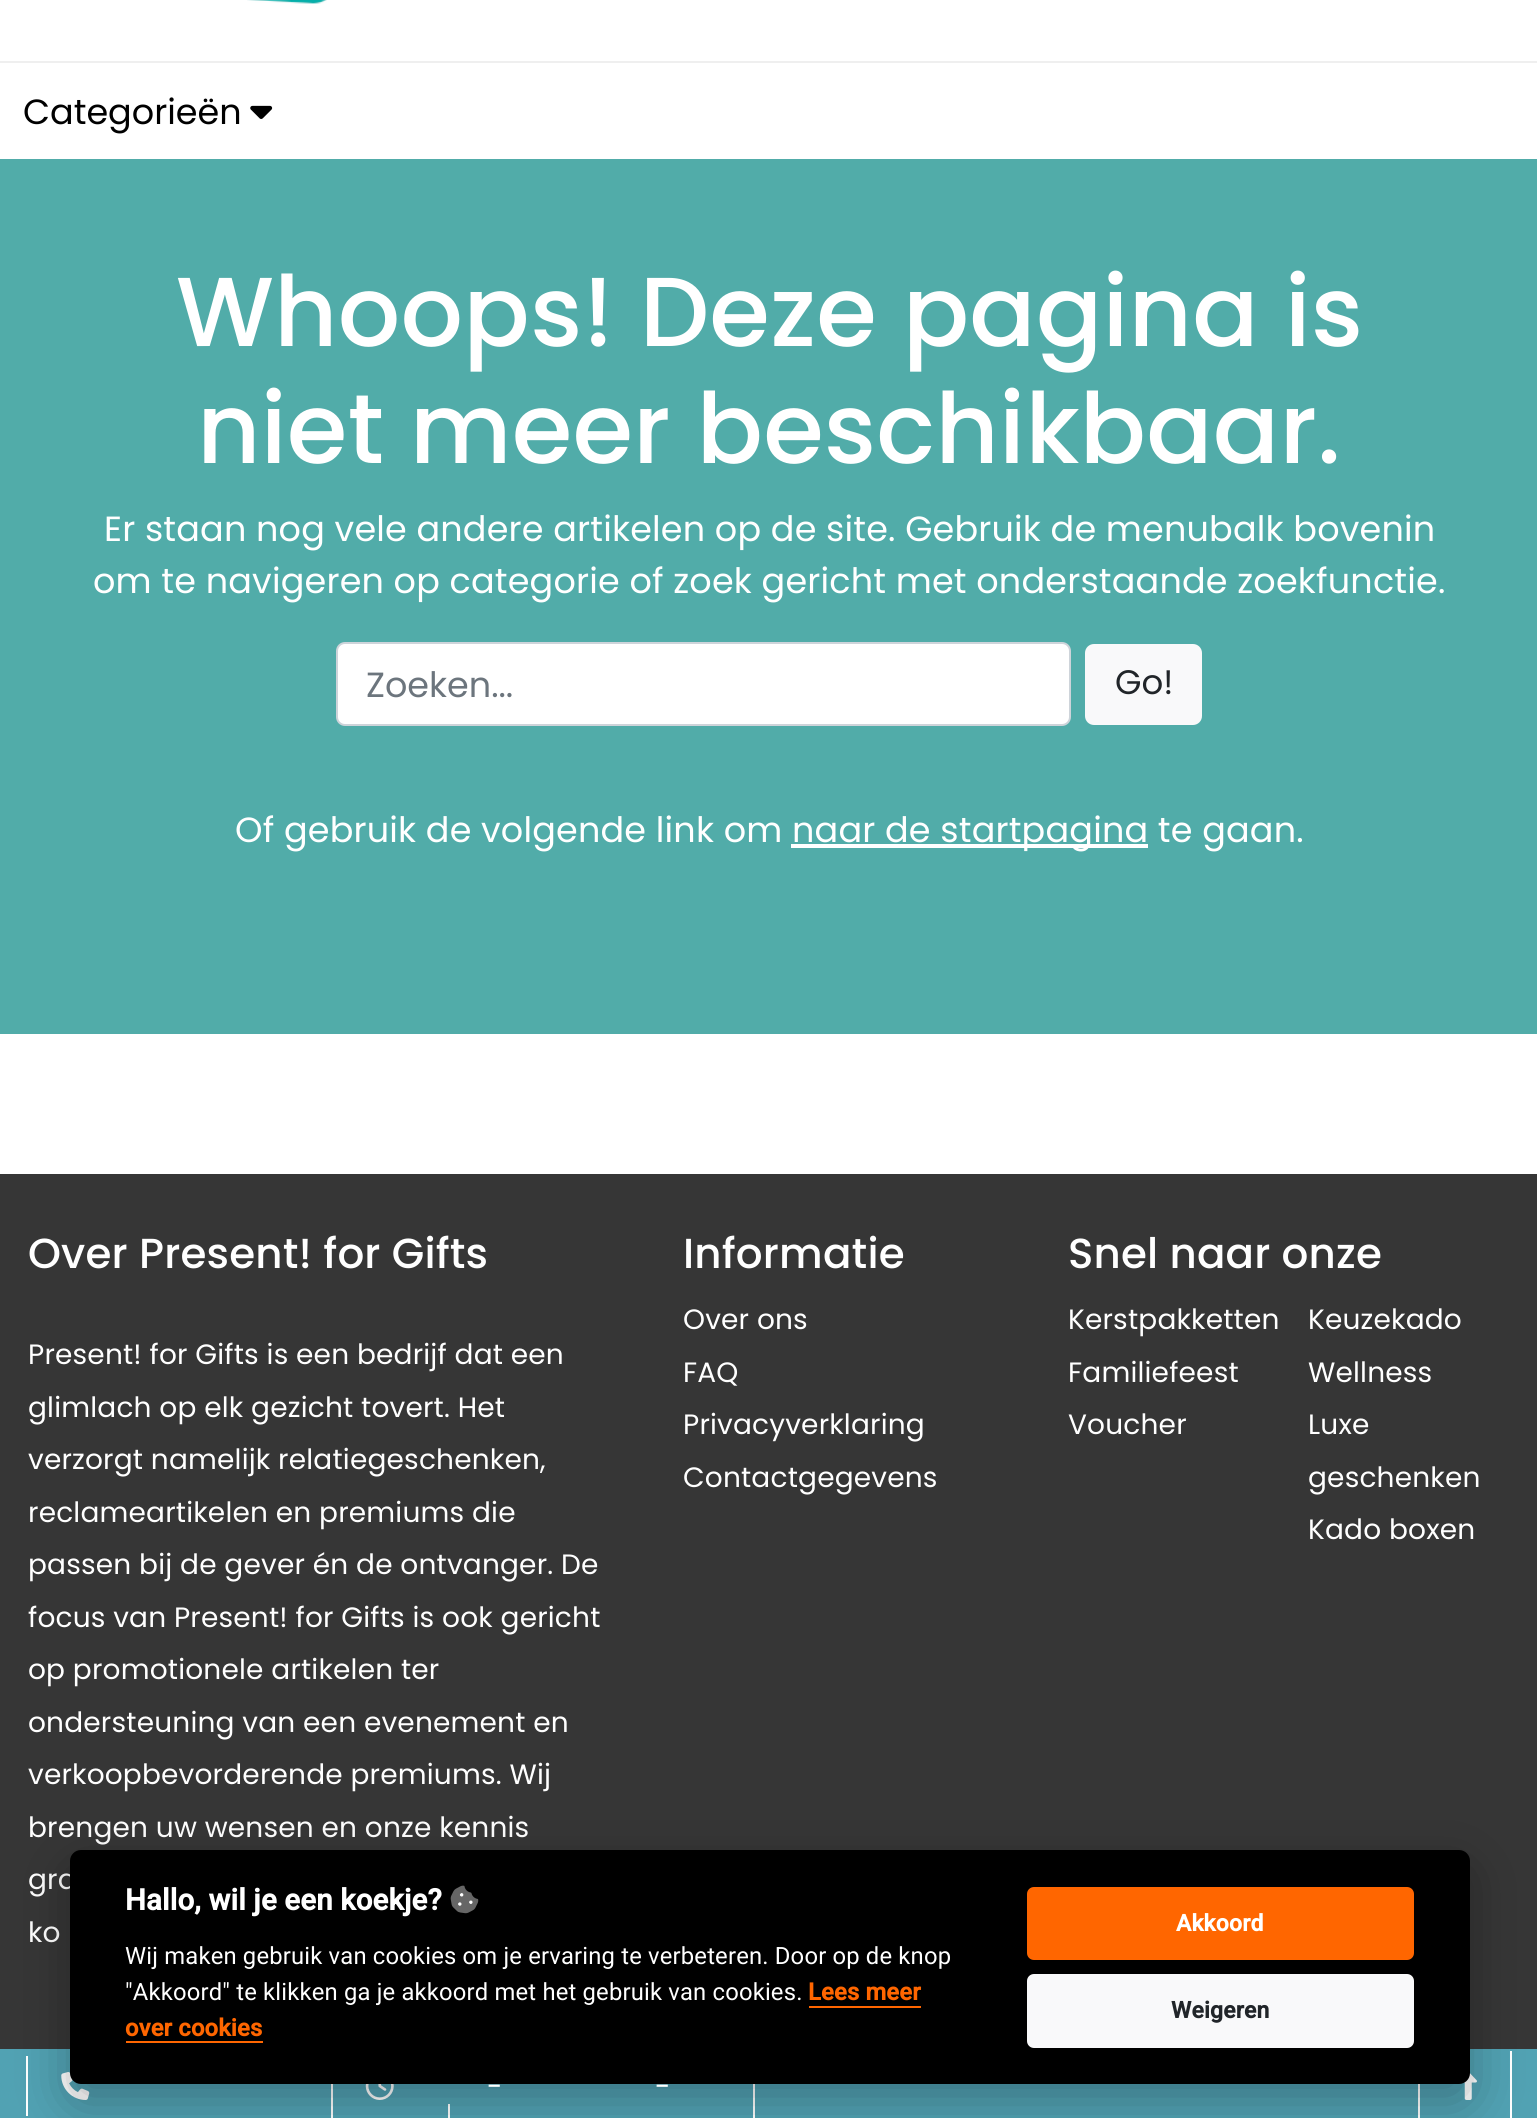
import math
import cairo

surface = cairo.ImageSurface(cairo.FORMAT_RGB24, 1537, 2118)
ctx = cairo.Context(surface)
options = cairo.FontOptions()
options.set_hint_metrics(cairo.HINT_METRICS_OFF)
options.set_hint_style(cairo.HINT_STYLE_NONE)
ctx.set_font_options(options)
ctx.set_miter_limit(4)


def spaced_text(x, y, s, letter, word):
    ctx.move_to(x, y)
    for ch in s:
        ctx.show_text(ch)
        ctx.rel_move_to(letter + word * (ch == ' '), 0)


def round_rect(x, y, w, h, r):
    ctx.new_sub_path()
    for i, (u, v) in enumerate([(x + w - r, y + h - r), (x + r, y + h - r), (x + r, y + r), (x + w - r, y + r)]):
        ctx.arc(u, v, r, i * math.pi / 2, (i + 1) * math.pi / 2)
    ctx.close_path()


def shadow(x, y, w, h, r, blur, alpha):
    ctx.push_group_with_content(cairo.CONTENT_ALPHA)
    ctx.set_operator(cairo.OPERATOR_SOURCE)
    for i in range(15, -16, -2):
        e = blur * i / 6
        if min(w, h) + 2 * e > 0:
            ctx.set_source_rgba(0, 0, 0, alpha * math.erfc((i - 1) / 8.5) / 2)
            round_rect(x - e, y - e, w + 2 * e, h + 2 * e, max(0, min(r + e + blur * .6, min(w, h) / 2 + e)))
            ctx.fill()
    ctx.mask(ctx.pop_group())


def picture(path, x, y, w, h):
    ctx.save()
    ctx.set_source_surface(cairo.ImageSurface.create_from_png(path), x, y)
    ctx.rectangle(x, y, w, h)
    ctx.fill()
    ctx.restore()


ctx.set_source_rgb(1, 1, 1)
ctx.paint()
picture("img1.png", 247, 0, 80, 4)
ctx.set_source_rgb(0.937, 0.937, 0.937)
ctx.rectangle(0, 61, 1537, 2)
ctx.fill()
ctx.select_font_face("Poppins")
ctx.set_font_size(35)
ctx.set_source_rgb(0, 0, 0)
ctx.move_to(23, 124)
ctx.show_text("Categorieën")
picture("img2.png", 250, 105, 23, 14)
ctx.set_source_rgb(0.318, 0.675, 0.663)
ctx.rectangle(0, 159, 1537, 875)
ctx.fill()
ctx.select_font_face("Poppins Medium")
ctx.set_font_size(98)
ctx.set_source_rgb(1, 1, 1)
spaced_text(176, 346, "Whoops! Deze pagina is", 0.18, 0)
spaced_text(197, 463, "niet meer beschikbaar.", 0.18, 0)
ctx.select_font_face("Poppins")
ctx.set_font_size(35)
spaced_text(104, 541, "Er staan nog vele andere artikelen op de site. Gebruik de menubalk bovenin", 0.18, 0)
spaced_text(93, 593, "om te navigeren op categorie of zoek gericht met onderstaande zoekfunctie.", 0.18, 0)
round_rect(337, 643, 733, 82, 8)
ctx.fill_preserve()
ctx.set_source_rgb(0.808, 0.831, 0.855)
ctx.stroke()
ctx.set_source_rgb(0.424, 0.459, 0.49)
ctx.move_to(366, 697)
ctx.show_text("Zoeken...")
ctx.set_source_rgb(0.973, 0.976, 0.98)
round_rect(1086, 645, 115, 79, 8)
ctx.fill_preserve()
ctx.stroke()
ctx.set_font_size(34)
ctx.set_source_rgb(0.129, 0.145, 0.161)
ctx.move_to(1115, 694)
ctx.show_text("Go!")
ctx.set_font_size(35)
ctx.set_source_rgb(1, 1, 1)
spaced_text(235, 842, "Of gebruik de volgende link om", 0.18, 0)
ctx.rectangle(791, 844, 357, 4)
ctx.fill()
spaced_text(792, 842, "naar de startpagina te gaan.", 0.18, 0)
ctx.set_source_rgb(0.212, 0.212, 0.212)
ctx.rectangle(0, 1174, 1537, 875)
ctx.fill()
ctx.select_font_face("Poppins Medium")
ctx.set_font_size(42)
ctx.set_source_rgb(1, 1, 1)
spaced_text(28, 1268, "Over Present! for Gifts", 0.18, 0)
ctx.select_font_face("Poppins")
ctx.set_font_size(28)
spaced_text(28, 1364, "Present! for Gifts is een bedrijf dat een", 0.18, 0)
spaced_text(28, 1417, "glimlach op elk gezicht tovert. Het", 0.18, 0)
spaced_text(28, 1469, "verzorgt namelijk relatiegeschenken,", 0.18, 0)
spaced_text(28, 1522, "reclameartikelen en premiums die", 0.18, 0)
spaced_text(28, 1574, "passen bij de gever én de ontvanger. De", 0.18, 0)
spaced_text(28, 1627, "focus van Present! for Gifts is ook gericht", 0.18, 0)
spaced_text(28, 1679, "op promotionele artikelen ter", 0.18, 0)
spaced_text(28, 1732, "ondersteuning van een evenement en", 0.18, 0)
spaced_text(28, 1784, "verkoopbevorderende premiums. Wij", 0.18, 0)
spaced_text(28, 1837, "brengen uw wensen en onze kennis", 0.18, 0)
spaced_text(28, 1889, "gra", 0.18, 0)
spaced_text(28, 1942, "ko", 0.18, 0)
ctx.select_font_face("Poppins Medium")
ctx.set_font_size(42)
spaced_text(683, 1268, "Informatie", 0.18, 0)
ctx.select_font_face("Poppins")
ctx.set_font_size(28)
spaced_text(683, 1329, "Over ons", 0.18, 0)
spaced_text(683, 1382, "FAQ", 0.18, 0)
spaced_text(683, 1434, "Privacyverklaring", 0.18, 0)
spaced_text(683, 1487, "Contactgegevens", 0.18, 0)
ctx.select_font_face("Poppins Medium")
ctx.set_font_size(42)
spaced_text(1068, 1268, "Snel naar onze", 0.18, 0)
ctx.select_font_face("Poppins")
ctx.set_font_size(28)
spaced_text(1068, 1329, "Kerstpakketten", 0.18, 0)
spaced_text(1068, 1382, "Familiefeest", 0.18, 0)
spaced_text(1068, 1434, "Voucher", 0.18, 0)
spaced_text(1308, 1329, "Keuzekado", 0.18, 0)
spaced_text(1308, 1382, "Wellness", 0.18, 0)
spaced_text(1308, 1434, "Luxe", 0.18, 0)
spaced_text(1308, 1487, "geschenken", 0.18, 0)
spaced_text(1308, 1539, "Kado boxen", 0.18, 0)
ctx.set_source_rgb(0.318, 0.635, 0.702)
ctx.rectangle(0, 2049, 1537, 69)
ctx.fill()
ctx.set_source_rgb(1, 1, 1)
ctx.rectangle(26, 2056, 2, 60)
ctx.fill()
ctx.rectangle(331, 2084, 2, 34)
ctx.fill()
picture("img4.png", 61, 2072, 29, 28)
ctx.rectangle(753, 2084, 2, 34)
ctx.fill()
picture("img5.png", 365, 2084, 29, 16)
ctx.rectangle(448, 2104, 2, 14)
ctx.fill()
ctx.rectangle(1510, 2051, 2, 67)
ctx.fill()
ctx.rectangle(1418, 2084, 2, 34)
ctx.fill()
picture("img6.png", 1463, 2073, 14, 27)
ctx.set_source_rgb(0.008, 0.008, 0.012)
shadow(70, 1867, 1400, 235, 11, 26, 0.28)
ctx.set_source_rgb(0, 0, 0)
round_rect(70, 1850, 1400, 234, 11)
ctx.fill()
ctx.select_font_face("Roboto", cairo.FONT_SLANT_NORMAL, cairo.FONT_WEIGHT_BOLD)
ctx.set_font_size(29.4)
ctx.set_source_rgb(1, 1, 1)
spaced_text(125, 1910, "Hallo, wil je een koekje?", 0.18, 0)
picture("img3.png", 450, 1885, 29, 29)
ctx.select_font_face("Roboto")
ctx.set_font_size(23.8)
spaced_text(125, 1964, "Wij maken gebruik van cookies om je ervaring te verbeteren. Door op de knop", 0.18, 0)
spaced_text(125, 2000, "\"Akkoord\" te klikken ga je akkoord met het gebruik van cookies.", 0.18, 0)
ctx.select_font_face("Roboto", cairo.FONT_SLANT_NORMAL, cairo.FONT_WEIGHT_BOLD)
ctx.set_source_rgb(1, 0.4, 0)
spaced_text(808, 2000, "Lees meer", 0.18, 0)
ctx.rectangle(809, 2006, 112, 2)
ctx.fill()
spaced_text(125, 2036, "over cookies", 0.18, 0)
ctx.rectangle(126, 2041, 137, 2)
ctx.fill()
round_rect(1027, 1887, 387, 73, 7)
ctx.fill()
ctx.set_font_size(23)
ctx.set_source_rgb(1, 1, 1)
spaced_text(1176, 1931, "Akkoord", 0.18, 0)
ctx.set_source_rgb(0.973, 0.976, 0.98)
round_rect(1027, 1974, 387, 74, 7)
ctx.fill()
ctx.set_source_rgb(0.129, 0.145, 0.161)
spaced_text(1171, 2018, "Weigeren", 0.18, 0)
ctx.select_font_face("Poppins")
ctx.set_font_size(28)
ctx.set_source_rgb(1, 1, 1)
spaced_text(487, 2096, "-", 0.18, 0)
spaced_text(655, 2096, "-", 0.18, 0)
surface.write_to_png("page.png")
